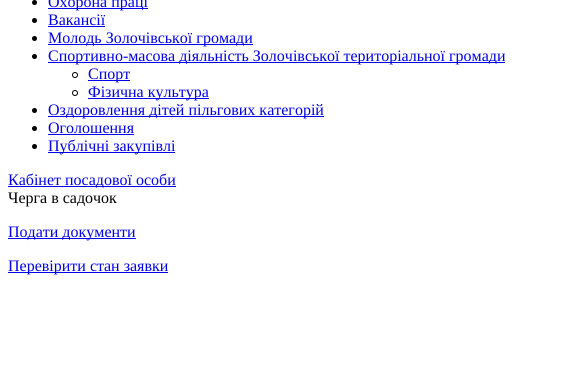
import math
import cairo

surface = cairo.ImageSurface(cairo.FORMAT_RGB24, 568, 387)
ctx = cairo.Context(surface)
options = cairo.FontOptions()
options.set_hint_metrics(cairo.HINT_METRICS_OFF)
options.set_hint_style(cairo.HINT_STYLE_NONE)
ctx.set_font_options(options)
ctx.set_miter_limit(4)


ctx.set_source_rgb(1, 1, 1)
ctx.paint()
ctx.set_source_rgb(0, 0, 0)
ctx.arc(34.5, 2.5, 2.5, 0, 2 * math.pi)
ctx.fill()
ctx.set_source_rgb(0, 0, 0.933)
ctx.rectangle(48, 8, 100, 1)
ctx.fill()
ctx.select_font_face("Liberation Serif")
ctx.set_font_size(16)
ctx.move_to(48, 7)
ctx.show_text("Охорона праці")
ctx.set_source_rgb(0, 0, 0)
ctx.new_path()
ctx.arc(34.5, 20.5, 2.5, 0, 2 * math.pi)
ctx.fill()
ctx.set_source_rgb(0, 0, 0.933)
ctx.move_to(48, 25)
ctx.show_text("Вакансії")
ctx.rectangle(48, 26, 57, 1)
ctx.fill()
ctx.set_source_rgb(0, 0, 0)
ctx.arc(34.5, 38.5, 2.5, 0, 2 * math.pi)
ctx.fill()
ctx.set_source_rgb(0, 0, 0.933)
ctx.rectangle(48, 44, 205, 1)
ctx.fill()
ctx.move_to(48, 43)
ctx.show_text("Молодь Золочівської громади")
ctx.set_source_rgb(0, 0, 0)
ctx.new_path()
ctx.arc(34.5, 56.5, 2.5, 0, 2 * math.pi)
ctx.fill()
ctx.set_source_rgb(0, 0, 0.933)
ctx.rectangle(48, 62, 457, 1)
ctx.fill()
ctx.move_to(48, 61)
ctx.show_text("Спортивно-масова діяльність Золочівської територіальної громади")
ctx.new_path()
ctx.arc(75, 75, 2.5, 0, 2 * math.pi)
ctx.set_source_rgb(0, 0, 0)
ctx.set_line_width(1)
ctx.stroke()
ctx.set_source_rgb(0, 0, 0.933)
ctx.rectangle(88, 80, 42, 1)
ctx.fill()
ctx.move_to(88, 79)
ctx.show_text("Спорт")
ctx.new_path()
ctx.arc(75, 93, 2.5, 0, 2 * math.pi)
ctx.set_source_rgb(0, 0, 0)
ctx.stroke()
ctx.set_source_rgb(0, 0, 0.933)
ctx.rectangle(88, 98, 121, 1)
ctx.fill()
ctx.move_to(88, 97)
ctx.show_text("Фізична культура")
ctx.set_source_rgb(0, 0, 0)
ctx.new_path()
ctx.arc(34.5, 110.5, 2.5, 0, 2 * math.pi)
ctx.fill()
ctx.set_source_rgb(0, 0, 0.933)
ctx.rectangle(48, 116, 276, 1)
ctx.fill()
ctx.move_to(48, 115)
ctx.show_text("Оздоровлення дітей пільгових категорій")
ctx.set_source_rgb(0, 0, 0)
ctx.new_path()
ctx.arc(34.5, 128.5, 2.5, 0, 2 * math.pi)
ctx.fill()
ctx.set_source_rgb(0, 0, 0.933)
ctx.move_to(48, 133)
ctx.show_text("Оголошення")
ctx.rectangle(48, 134, 86, 1)
ctx.fill()
ctx.set_source_rgb(0, 0, 0)
ctx.arc(34.5, 146.5, 2.5, 0, 2 * math.pi)
ctx.fill()
ctx.set_source_rgb(0, 0, 0.933)
ctx.rectangle(48, 152, 127, 1)
ctx.fill()
ctx.move_to(48, 151)
ctx.show_text("Публічні закупівлі")
ctx.rectangle(8, 186, 168, 1)
ctx.fill()
ctx.move_to(8, 185)
ctx.show_text("Кабінет посадової особи")
ctx.set_source_rgb(0, 0, 0)
ctx.move_to(8, 203)
ctx.show_text("Черга в садочок")
ctx.set_source_rgb(0, 0, 0.933)
ctx.rectangle(8, 238, 128, 1)
ctx.fill()
ctx.move_to(8, 237)
ctx.show_text("Подати документи")
ctx.rectangle(8, 272, 160, 1)
ctx.fill()
ctx.move_to(8, 271)
ctx.show_text("Перевірити стан заявки")
surface.write_to_png("page.png")
